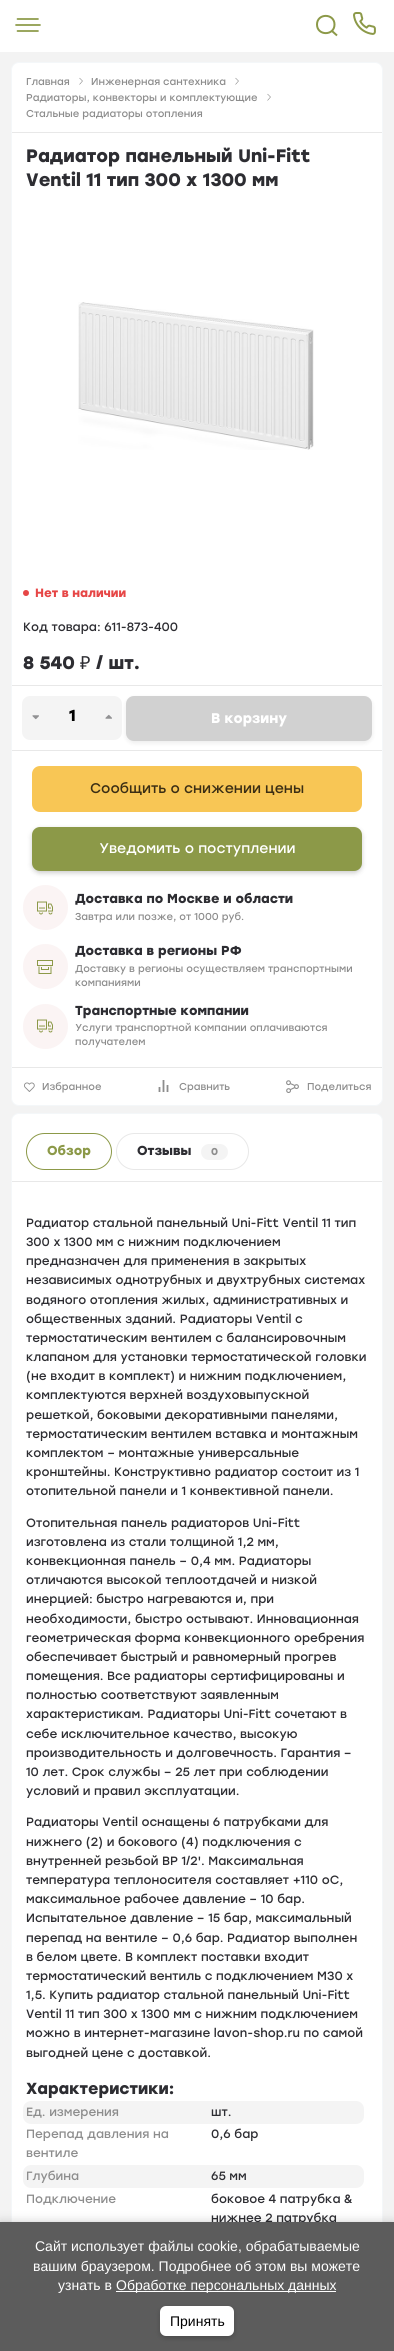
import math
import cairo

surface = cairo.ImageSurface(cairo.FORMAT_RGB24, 394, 2351)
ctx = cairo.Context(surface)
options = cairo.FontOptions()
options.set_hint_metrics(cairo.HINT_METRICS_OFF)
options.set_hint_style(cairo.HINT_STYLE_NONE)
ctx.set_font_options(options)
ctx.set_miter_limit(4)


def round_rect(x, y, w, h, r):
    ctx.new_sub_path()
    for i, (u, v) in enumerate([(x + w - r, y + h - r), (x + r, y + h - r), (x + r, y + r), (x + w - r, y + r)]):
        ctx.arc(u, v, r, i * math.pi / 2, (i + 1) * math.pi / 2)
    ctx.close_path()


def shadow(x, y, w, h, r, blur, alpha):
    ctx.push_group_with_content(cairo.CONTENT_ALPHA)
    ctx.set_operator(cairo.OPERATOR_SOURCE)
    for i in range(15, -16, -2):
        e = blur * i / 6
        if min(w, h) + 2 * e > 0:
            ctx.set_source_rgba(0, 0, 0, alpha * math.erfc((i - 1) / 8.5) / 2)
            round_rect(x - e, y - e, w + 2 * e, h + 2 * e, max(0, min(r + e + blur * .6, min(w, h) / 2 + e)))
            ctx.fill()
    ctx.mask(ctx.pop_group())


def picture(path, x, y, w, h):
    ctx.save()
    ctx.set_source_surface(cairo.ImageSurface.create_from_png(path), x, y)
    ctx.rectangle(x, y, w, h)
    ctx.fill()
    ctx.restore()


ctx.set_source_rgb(0.953, 0.953, 0.953)
ctx.paint()
ctx.set_source_rgb(1, 1, 1)
ctx.rectangle(0, 0, 394, 52)
ctx.fill()
ctx.new_path()
ctx.move_to(17.5, 19)
ctx.line_to(38, 19)
ctx.move_to(16, 25)
ctx.line_to(40, 25)
ctx.move_to(17.5, 31)
ctx.line_to(38, 31)
ctx.set_source_rgb(0.549, 0.6, 0.282)
ctx.set_line_width(1.7)
ctx.set_line_cap(cairo.LINE_CAP_ROUND)
ctx.stroke()
ctx.new_path()
ctx.move_to(334.5, 24.5)
ctx.curve_to(334.5, 36, 317, 36, 317, 24.5)
ctx.curve_to(317, 13, 334.5, 13, 334.5, 24.5)
ctx.close_path()
ctx.move_to(337, 35.5)
ctx.line_to(332, 31)
ctx.set_line_width(2)
ctx.set_line_cap(cairo.LINE_CAP_BUTT)
ctx.stroke()
picture("img1.png", 353, 12, 23, 23)
ctx.set_source_rgb(1, 1, 1)
round_rect(11.5, 62.5, 371, 1043, 7.5)
ctx.fill_preserve()
ctx.set_source_rgb(0.957, 0.965, 0.976)
ctx.set_line_width(1)
ctx.stroke()
ctx.set_source_rgb(0.91, 0.91, 0.91)
ctx.rectangle(12, 132, 370, 1)
ctx.fill()
ctx.select_font_face("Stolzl")
ctx.set_font_size(10)
ctx.set_source_rgb(0.553, 0.553, 0.553)
ctx.move_to(26, 85)
ctx.show_text("Главная")
ctx.new_path()
ctx.move_to(79.5, 78)
ctx.line_to(82.5, 81)
ctx.line_to(79.5, 84.5)
ctx.set_source_rgb(0.475, 0.475, 0.475)
ctx.set_line_width(0.5)
ctx.stroke()
ctx.set_source_rgb(0.553, 0.553, 0.553)
ctx.move_to(91, 85)
ctx.show_text("Инженерная сантехника")
ctx.new_path()
ctx.move_to(235.5, 78)
ctx.line_to(238.5, 81)
ctx.line_to(235.5, 84.5)
ctx.set_source_rgb(0.475, 0.475, 0.475)
ctx.stroke()
ctx.set_source_rgb(0.553, 0.553, 0.553)
ctx.move_to(26, 101)
ctx.show_text("Радиаторы, конвекторы и комплектующие")
ctx.new_path()
ctx.move_to(267.5, 94)
ctx.line_to(270.5, 97)
ctx.line_to(267.5, 100.5)
ctx.set_source_rgb(0.475, 0.475, 0.475)
ctx.stroke()
ctx.set_source_rgb(0.553, 0.553, 0.553)
ctx.move_to(26, 117)
ctx.show_text("Стальные радиаторы отопления")
ctx.select_font_face("Stolzl", cairo.FONT_SLANT_NORMAL, cairo.FONT_WEIGHT_BOLD)
ctx.set_font_size(18)
ctx.set_source_rgb(0.176, 0.176, 0.196)
ctx.move_to(26, 162)
ctx.show_text("Радиатор панельный Uni-Fitt")
ctx.move_to(26, 186)
ctx.show_text("Ventil 11 тип 300 х 1300 мм")
picture("img2.png", 78, 302, 236, 148)
ctx.set_source_rgb(0.902, 0.275, 0.275)
ctx.arc(26, 593, 3, 0, 2 * math.pi)
ctx.fill()
ctx.set_font_size(12)
ctx.move_to(35, 597)
ctx.show_text("Нет в наличии")
ctx.select_font_face("Stolzl")
ctx.set_source_rgb(0.176, 0.176, 0.196)
ctx.move_to(23, 631)
ctx.show_text("Код товара: 611-873-400")
ctx.select_font_face("Stolzl", cairo.FONT_SLANT_NORMAL, cairo.FONT_WEIGHT_BOLD)
ctx.set_font_size(18)
ctx.move_to(23, 669)
ctx.show_text("8 540")
ctx.select_font_face("Noto Sans")
ctx.move_to(80, 669)
ctx.show_text("₽")
ctx.select_font_face("Stolzl", cairo.FONT_SLANT_NORMAL, cairo.FONT_WEIGHT_BOLD)
ctx.move_to(96, 669)
ctx.show_text("/ шт.")
ctx.set_source_rgb(0.91, 0.91, 0.91)
ctx.rectangle(12, 685, 370, 1)
ctx.fill()
ctx.rectangle(12, 750, 370, 1)
ctx.fill()
ctx.set_source_rgb(0.957, 0.957, 0.957)
round_rect(22, 696, 100, 44, 8)
ctx.fill()
picture("img3.png", 32, 715, 7, 5)
ctx.set_font_size(16)
ctx.set_source_rgb(0, 0, 0)
ctx.move_to(69, 721)
ctx.show_text("1")
picture("img4.png", 105, 714, 7, 5)
ctx.set_source_rgb(0, 0, 0)
shadow(126, 698, 246, 45, 8, 2.5, 0.08)
ctx.set_source_rgb(0.82, 0.82, 0.82)
round_rect(126, 696, 246, 45, 8)
ctx.fill()
ctx.set_font_size(14)
ctx.set_source_rgb(1, 1, 1)
ctx.move_to(211, 723)
ctx.show_text("В корзину")
ctx.set_source_rgb(0.969, 0.776, 0.333)
round_rect(32, 766, 330, 46, 8)
ctx.fill()
ctx.select_font_face("Stolzl")
ctx.set_source_rgb(0.231, 0.18, 0.082)
ctx.move_to(90, 793)
ctx.show_text("Сообщить о снижении цены")
ctx.set_source_rgb(0, 0, 0)
shadow(32, 829, 330, 44, 8, 2.5, 0.2)
ctx.set_source_rgb(0.549, 0.6, 0.282)
round_rect(32, 827, 330, 44, 8)
ctx.fill()
ctx.set_source_rgb(1, 1, 1)
ctx.move_to(99, 853)
ctx.show_text("Уведомить о поступлении")
ctx.set_source_rgb(0.984, 0.957, 0.957)
ctx.new_path()
ctx.arc(45.5, 907.5, 22.5, 0, 2 * math.pi)
ctx.fill()
picture("img5.png", 37, 901, 16, 14)
ctx.select_font_face("Stolzl", cairo.FONT_SLANT_NORMAL, cairo.FONT_WEIGHT_BOLD)
ctx.set_font_size(13)
ctx.set_source_rgb(0.176, 0.176, 0.196)
ctx.move_to(75, 903)
ctx.show_text("Доставка по Москве и области")
ctx.select_font_face("Stolzl")
ctx.set_font_size(10)
ctx.set_source_rgb(0.553, 0.553, 0.553)
ctx.move_to(75, 920)
ctx.show_text("Завтра или позже, от 1000 руб.")
ctx.set_source_rgb(0.984, 0.957, 0.957)
ctx.new_path()
ctx.arc(45.5, 966.5, 22.5, 0, 2 * math.pi)
ctx.fill()
picture("img6.png", 37, 960, 16, 14)
ctx.select_font_face("Stolzl", cairo.FONT_SLANT_NORMAL, cairo.FONT_WEIGHT_BOLD)
ctx.set_font_size(13)
ctx.set_source_rgb(0.176, 0.176, 0.196)
ctx.move_to(75, 955)
ctx.show_text("Доставка в регионы РФ")
ctx.select_font_face("Stolzl")
ctx.set_font_size(10)
ctx.set_source_rgb(0.553, 0.553, 0.553)
ctx.move_to(75, 972)
ctx.show_text("Доставку в регионы осуществляем транспортными")
ctx.move_to(75, 986)
ctx.show_text("компаниями")
ctx.set_source_rgb(0.984, 0.957, 0.957)
ctx.new_path()
ctx.arc(45.5, 1026.5, 22.5, 0, 2 * math.pi)
ctx.fill()
picture("img5.png", 37, 1019, 16, 14)
ctx.select_font_face("Stolzl", cairo.FONT_SLANT_NORMAL, cairo.FONT_WEIGHT_BOLD)
ctx.set_font_size(13)
ctx.set_source_rgb(0.176, 0.176, 0.196)
ctx.move_to(75, 1015)
ctx.show_text("Транспортные компании")
ctx.select_font_face("Stolzl")
ctx.set_font_size(10)
ctx.set_source_rgb(0.553, 0.553, 0.553)
ctx.move_to(75, 1031)
ctx.show_text("Услуги транспортной компании оплачиваются")
ctx.move_to(75, 1045)
ctx.show_text("получателем")
ctx.set_source_rgb(0.91, 0.91, 0.91)
ctx.rectangle(12, 1067, 370, 1)
ctx.fill()
picture("img7.png", 24, 1082, 11, 10)
ctx.set_source_rgb(0.553, 0.553, 0.553)
ctx.move_to(42, 1090)
ctx.show_text("Избранное")
ctx.new_path()
ctx.move_to(163.5, 1080)
ctx.line_to(163.5, 1092)
ctx.move_to(167.5, 1085)
ctx.line_to(167.5, 1092)
ctx.move_to(159.5, 1087)
ctx.line_to(159.5, 1092)
ctx.set_line_width(1.8)
ctx.stroke()
ctx.move_to(179, 1090)
ctx.show_text("Сравнить")
picture("img8.png", 286, 1080, 13, 13)
ctx.move_to(307, 1090)
ctx.show_text("Поделиться")
ctx.set_source_rgb(1, 1, 1)
round_rect(11.5, 1113.5, 371, 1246, 7.5)
ctx.fill_preserve()
ctx.set_source_rgb(0.957, 0.965, 0.976)
ctx.set_line_width(1)
ctx.stroke()
ctx.set_source_rgb(0.91, 0.91, 0.91)
ctx.rectangle(12, 1181, 370, 1)
ctx.fill()
round_rect(26.5, 1133.5, 85, 36, 18)
ctx.set_source_rgb(0.549, 0.6, 0.282)
ctx.stroke()
ctx.select_font_face("Stolzl", cairo.FONT_SLANT_NORMAL, cairo.FONT_WEIGHT_BOLD)
ctx.set_font_size(13)
ctx.move_to(47, 1155)
ctx.show_text("Обзор")
round_rect(116.5, 1133.5, 132, 36, 18)
ctx.set_source_rgb(0.91, 0.91, 0.91)
ctx.stroke()
ctx.set_source_rgb(0.176, 0.176, 0.196)
ctx.move_to(137, 1155)
ctx.show_text("Отзывы")
ctx.set_source_rgb(0.957, 0.957, 0.957)
round_rect(201, 1144, 27, 16, 8)
ctx.fill()
ctx.set_font_size(10)
ctx.set_source_rgb(0.553, 0.553, 0.553)
ctx.move_to(211, 1155)
ctx.show_text("0")
ctx.select_font_face("Stolzl")
ctx.set_font_size(12)
ctx.set_source_rgb(0.176, 0.176, 0.196)
ctx.move_to(26, 1227)
ctx.show_text("Радиатор стальной панельный Uni-Fitt Ventil 11 тип")
ctx.move_to(26, 1246)
ctx.show_text("300 х 1300 мм с нижним подключением")
ctx.move_to(26, 1265)
ctx.show_text("предназначен для применения в закрытых")
ctx.move_to(26, 1284)
ctx.show_text("независимых однотрубных и двухтрубных системах")
ctx.move_to(26, 1304)
ctx.show_text("водяного отопления жилых, административных и")
ctx.move_to(26, 1323)
ctx.show_text("общественных зданий. Радиаторы Ventil с")
ctx.move_to(26, 1342)
ctx.show_text("термостатическим вентилем с балансировочным")
ctx.move_to(26, 1361)
ctx.show_text("клапаном для установки термостатической головки")
ctx.move_to(26, 1380)
ctx.show_text("(не входит в комплект) и нижним подключением,")
ctx.move_to(26, 1399)
ctx.show_text("комплектуются верхней воздуховыпускной")
ctx.move_to(26, 1419)
ctx.show_text("решеткой, боковыми декоративными панелями,")
ctx.move_to(26, 1438)
ctx.show_text("термостатическим вентилем вставка и монтажным")
ctx.move_to(26, 1457)
ctx.show_text("комплектом – монтажные универсальные")
ctx.move_to(26, 1476)
ctx.show_text("кронштейны. Конструктивно радиатор состоит из 1")
ctx.move_to(26, 1495)
ctx.show_text("отопительной панели и 1 конвективной панели.")
ctx.move_to(26, 1527)
ctx.show_text("Отопительная панель радиаторов Uni-Fitt")
ctx.move_to(26, 1546)
ctx.show_text("изготовлена из стали толщиной 1,2 мм,")
ctx.move_to(26, 1565)
ctx.show_text("конвекционная панель – 0,4 мм. Радиаторы")
ctx.move_to(26, 1584)
ctx.show_text("отличаются высокой теплоотдачей и низкой")
ctx.move_to(26, 1603)
ctx.show_text("инерцией: быстро нагреваются и, при")
ctx.move_to(26, 1623)
ctx.show_text("необходимости, быстро остывают. Инновационная")
ctx.move_to(26, 1642)
ctx.show_text("геометрическая форма конвекционного оребрения")
ctx.move_to(26, 1661)
ctx.show_text("обеспечивает быстрый и равномерный прогрев")
ctx.move_to(26, 1680)
ctx.show_text("помещения. Все радиаторы сертифицированы и")
ctx.move_to(26, 1699)
ctx.show_text("полностью соответствуют заявленным")
ctx.move_to(26, 1718)
ctx.show_text("характеристикам. Радиаторы Uni-Fitt сочетают в")
ctx.move_to(26, 1738)
ctx.show_text("себе исключительное качество, высокую")
ctx.move_to(26, 1757)
ctx.show_text("производительность и долговечность. Гарантия –")
ctx.move_to(26, 1776)
ctx.show_text("10 лет. Срок службы – 25 лет при соблюдении")
ctx.move_to(26, 1795)
ctx.show_text("условий и правил эксплуатации.")
ctx.move_to(26, 1826)
ctx.show_text("Радиаторы Ventil оснащены 6 патрубками для")
ctx.move_to(26, 1846)
ctx.show_text("нижнего (2) и бокового (4) подключения с")
ctx.move_to(26, 1865)
ctx.show_text("внутренней резьбой BP 1/2'. Максимальная")
ctx.move_to(26, 1884)
ctx.show_text("температура теплоносителя составляет +110 оС,")
ctx.move_to(26, 1903)
ctx.show_text("максимальное рабочее давление – 10 бар.")
ctx.move_to(26, 1922)
ctx.show_text("Испытательное давление – 15 бар, максимальный")
ctx.move_to(26, 1942)
ctx.show_text("перепад на вентиле – 0,6 бар. Радиатор выполнен")
ctx.move_to(26, 1961)
ctx.show_text("в белом цвете. В комплект поставки входит")
ctx.move_to(26, 1980)
ctx.show_text("термостатический вентиль с подключением М30 х")
ctx.move_to(26, 1999)
ctx.show_text("1,5. Купить радиатор стальной панельный Uni-Fitt")
ctx.move_to(26, 2018)
ctx.show_text("Ventil 11 тип 300 х 1300 мм с нижним подключением")
ctx.move_to(26, 2037)
ctx.show_text("можно в интернет-магазине lavon-shop.ru по самой")
ctx.move_to(26, 2057)
ctx.show_text("выгодней цене с доставкой.")
ctx.select_font_face("Stolzl", cairo.FONT_SLANT_NORMAL, cairo.FONT_WEIGHT_BOLD)
ctx.set_font_size(16)
ctx.move_to(26, 2094)
ctx.show_text("Характеристики:")
ctx.set_source_rgb(0.957, 0.957, 0.957)
round_rect(23, 2101, 341, 23, 8)
ctx.fill()
ctx.select_font_face("Stolzl")
ctx.set_font_size(12)
ctx.set_source_rgb(0.553, 0.553, 0.553)
ctx.move_to(26, 2116)
ctx.show_text("Ед. измерения")
ctx.set_source_rgb(0.176, 0.176, 0.196)
ctx.move_to(211, 2116)
ctx.show_text("шт.")
ctx.set_source_rgb(0.553, 0.553, 0.553)
ctx.move_to(26, 2138)
ctx.show_text("Перепад давления на")
ctx.move_to(26, 2157)
ctx.show_text("вентиле")
ctx.set_source_rgb(0.176, 0.176, 0.196)
ctx.move_to(211, 2138)
ctx.show_text("0,6 бар")
ctx.set_source_rgb(0.957, 0.957, 0.957)
round_rect(23, 2165, 341, 23, 8)
ctx.fill()
ctx.set_source_rgb(0.553, 0.553, 0.553)
ctx.move_to(26, 2180)
ctx.show_text("Глубина")
ctx.set_source_rgb(0.176, 0.176, 0.196)
ctx.move_to(211, 2180)
ctx.show_text("65 мм")
ctx.set_source_rgb(0.553, 0.553, 0.553)
ctx.move_to(26, 2203)
ctx.show_text("Подключение")
ctx.set_source_rgb(0.176, 0.176, 0.196)
ctx.move_to(211, 2203)
ctx.show_text("боковое 4 патрубка &")
ctx.move_to(211, 2222)
ctx.show_text("нижнее 2 патрубка")
ctx.set_source_rgb(0, 0, 0)
shadow(0, 2222, 394, 129, 0, 5, 0.2)
ctx.set_source_rgb(0.361, 0.361, 0.361)
ctx.rectangle(0, 2222, 394, 129)
ctx.fill()
ctx.select_font_face("Liberation Sans")
ctx.set_font_size(14)
ctx.set_source_rgb(1, 1, 1)
ctx.move_to(35, 2251)
ctx.show_text("Сайт использует файлы cookie, обрабатываемые")
ctx.move_to(33, 2271)
ctx.show_text("вашим браузером. Подробнее об этом вы можете")
ctx.move_to(58, 2290)
ctx.show_text("узнать в")
ctx.rectangle(116, 2291, 220, 1)
ctx.fill()
ctx.move_to(116, 2290)
ctx.show_text("Обработке персональных данных")
ctx.set_source_rgb(0, 0, 0)
shadow(160, 2308, 74, 30, 6, 2.5, 0.2)
ctx.set_source_rgb(1, 1, 1)
round_rect(160, 2306, 74, 30, 6)
ctx.fill()
ctx.set_source_rgb(0, 0, 0)
ctx.move_to(170, 2326)
ctx.show_text("Принять")
surface.write_to_png("page.png")
